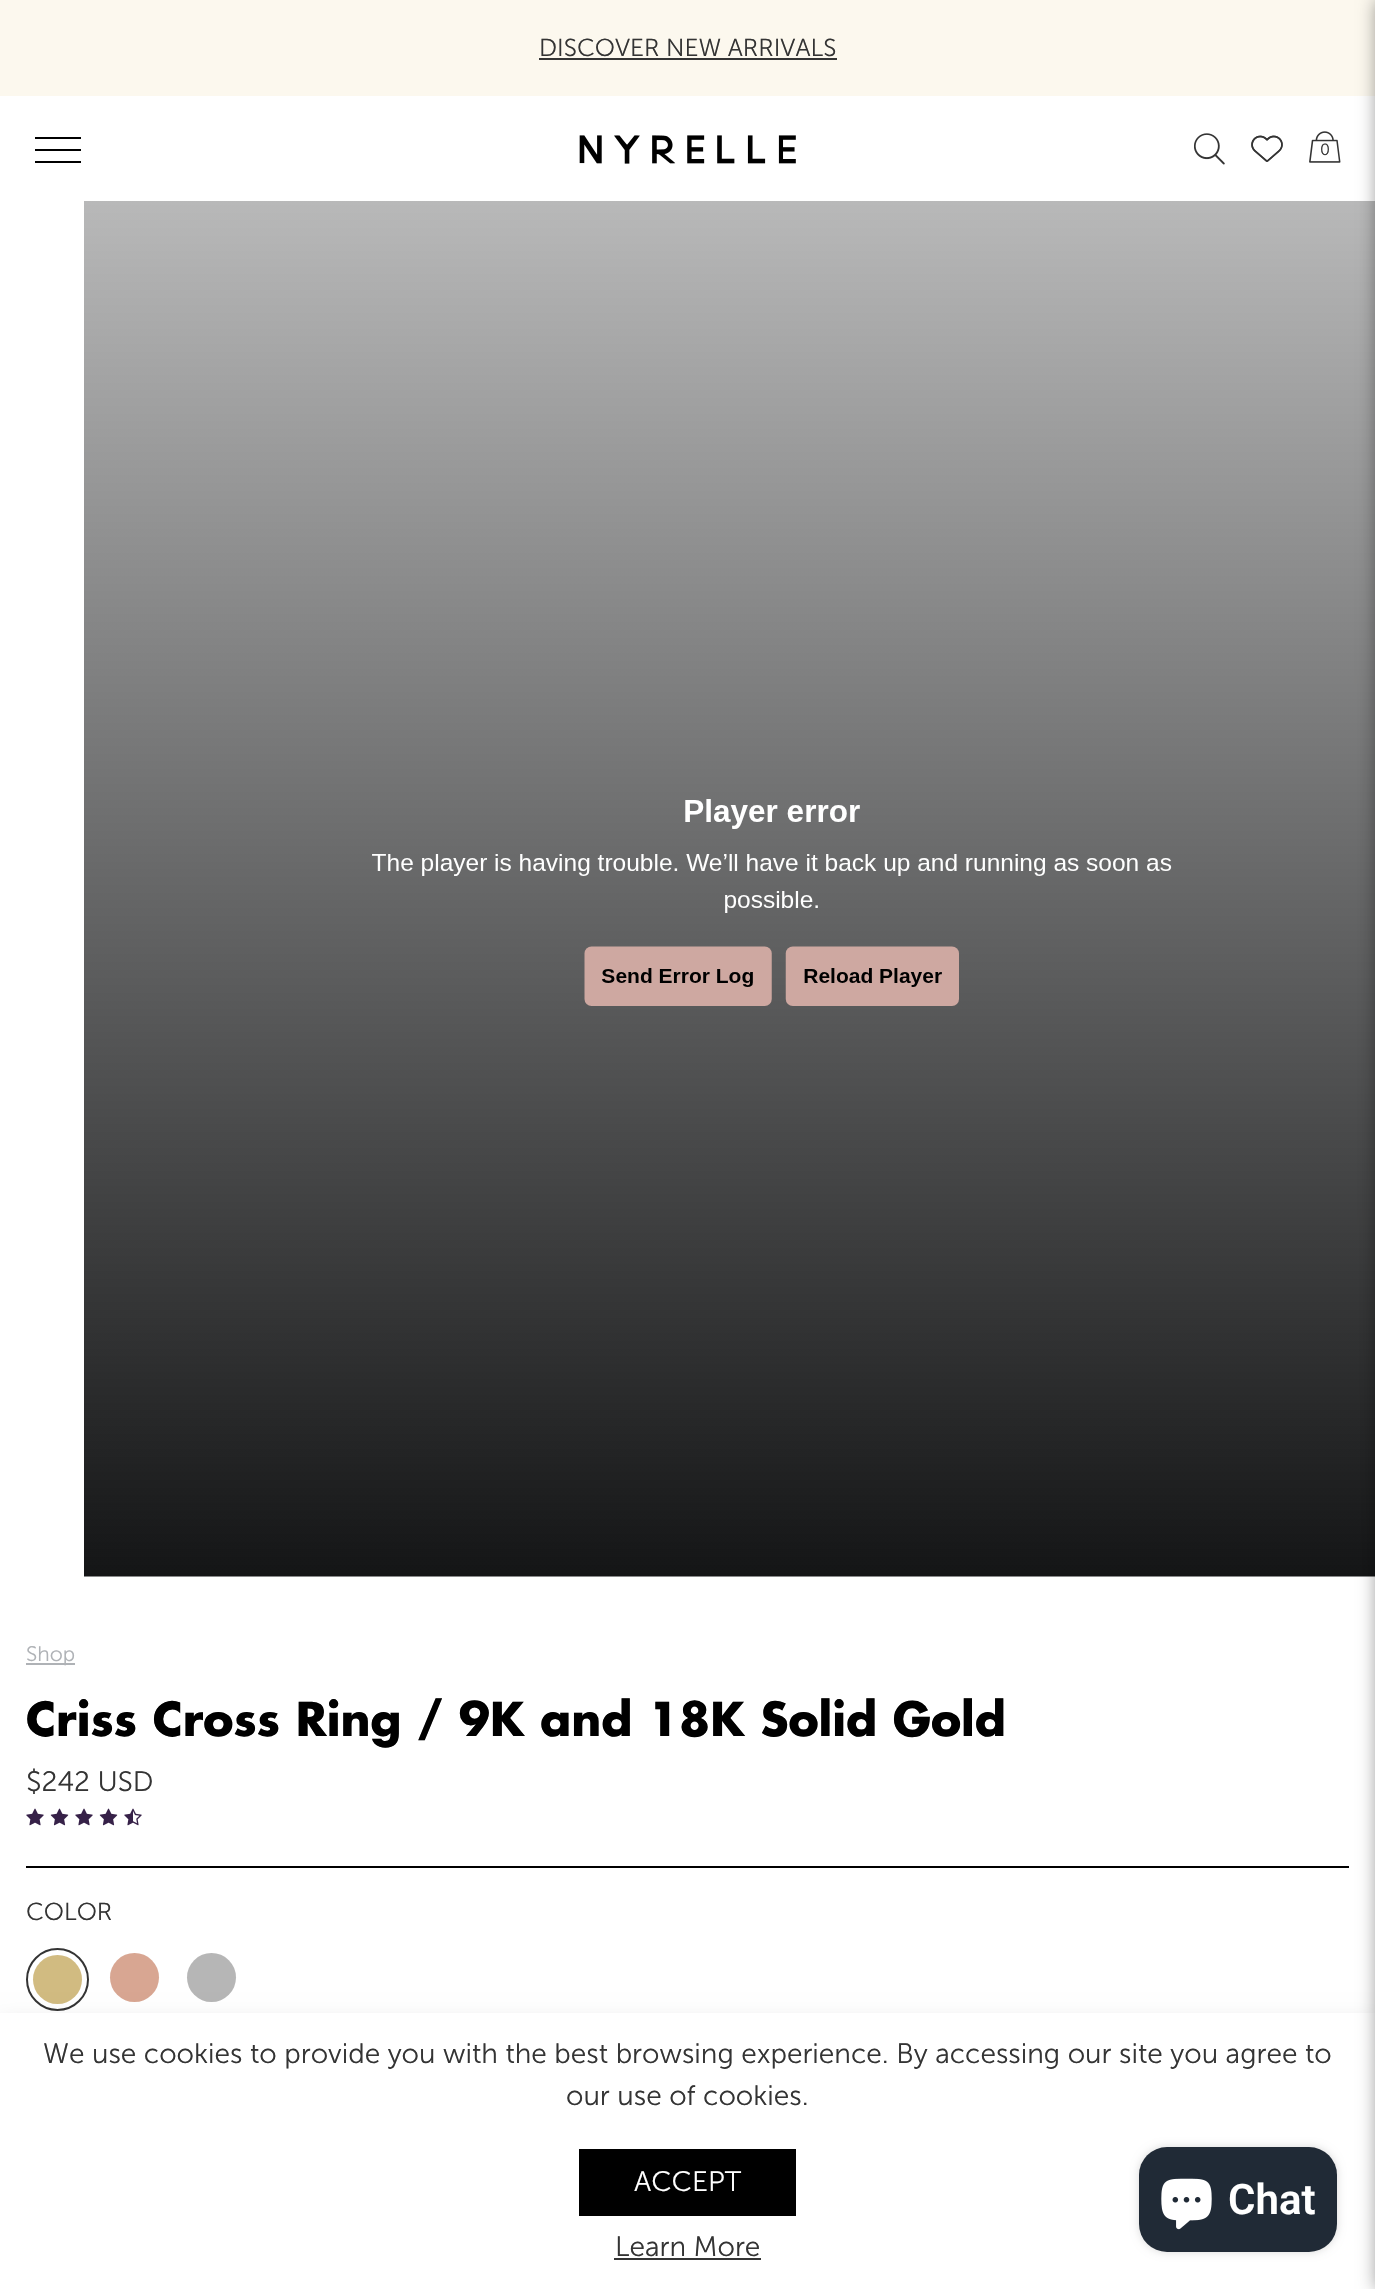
#include "include/core/SkBlurTypes.h"
#include "include/core/SkCanvas.h"
#include "include/core/SkData.h"
#include "include/core/SkFont.h"
#include "include/core/SkFontMgr.h"
#include "include/core/SkImage.h"
#include "include/core/SkMaskFilter.h"
#include "include/core/SkPaint.h"
#include "include/core/SkPathBuilder.h"
#include "include/core/SkTextBlob.h"
#include "include/effects/SkDashPathEffect.h"
#include "include/effects/SkGradientShader.h"
#include "include/utils/SkParsePath.h"

extern sk_sp<SkFontMgr> fontMgr;

void draw(SkCanvas* canvas) {
  SkPaint p;
  p.setAntiAlias(true);
  canvas->clear(SK_ColorWHITE);
  p.setColor(SkColorSetRGB(252, 248, 238));
  canvas->drawRect(SkRect::MakeLTRB(0, 0, 1375, 96), p);
  p.setColor(SkColorSetRGB(52, 52, 52));
  canvas->drawRect(SkRect::MakeLTRB(539, 58, 837, 60), p);
  canvas->drawImageRect(SkImages::DeferredFromEncodedData(SkData::MakeFromFileName("images/5.png")), SkRect::MakeLTRB(84, 201, 1375, 1577), SkSamplingOptions());
  p.setColor(SK_ColorBLACK);
  canvas->drawRect(SkRect::MakeLTRB(26, 1866, 1349, 1868), p);
  p.setStyle(SkPaint::kStroke_Style);
  p.setStrokeWidth(2);
  p.setColor(SkColorSetRGB(52, 52, 52));
  canvas->drawCircle(57.5f, 1979.5f, 30.5f, p);
  p.setStyle(SkPaint::kFill_Style);
  p.setColor(SkColorSetRGB(209, 187, 129));
  canvas->drawCircle(57.5f, 1979.5f, 24.5f, p);
  p.setColor(SkColorSetRGB(216, 166, 146));
  canvas->drawCircle(134.5f, 1977.5f, 24.5f, p);
  p.setColor(SkColorSetRGB(182, 182, 182));
  canvas->drawCircle(211.5f, 1977.5f, 24.5f, p);
  p.setColor(SkColorSetARGB(38, 0, 0, 0));
  p.setMaskFilter(SkMaskFilter::MakeBlur(kNormal_SkBlurStyle, 10.5f));
  canvas->drawRect(SkRect::MakeLTRB(0, 2023, 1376, 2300), p);
  p.setMaskFilter(nullptr);
  p.setColor(SK_ColorWHITE);
  canvas->drawRect(SkRect::MakeLTRB(0, 2013, 1375, 2289), p);
  p.setColor(SkColorSetARGB(102, 0, 0, 0));
  p.setMaskFilter(SkMaskFilter::MakeBlur(kNormal_SkBlurStyle, 9));
  canvas->drawRect(SkRect::MakeLTRB(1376, 0, 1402, 2289), p);
  p.setMaskFilter(nullptr);
  p.setColor(SK_ColorBLACK);
  canvas->drawRect(SkRect::MakeLTRB(35, 149, 81, 151), p);
  canvas->drawRect(SkRect::MakeLTRB(35, 137, 81, 139), p);
  canvas->drawRect(SkRect::MakeLTRB(35, 161, 81, 163), p);
  canvas->drawImageRect(SkImages::DeferredFromEncodedData(SkData::MakeFromFileName("images/1.png")), SkRect::MakeLTRB(579, 135, 796, 164), SkSamplingOptions());
  canvas->drawImageRect(SkImages::DeferredFromEncodedData(SkData::MakeFromFileName("images/2.png")), SkRect::MakeLTRB(1194, 133, 1225, 165), SkSamplingOptions());
  canvas->drawImageRect(SkImages::DeferredFromEncodedData(SkData::MakeFromFileName("images/3.png")), SkRect::MakeLTRB(1251, 135, 1283, 162), SkSamplingOptions());
  canvas->drawImageRect(SkImages::DeferredFromEncodedData(SkData::MakeFromFileName("images/4.png")), SkRect::MakeLTRB(1309, 131, 1341, 163), SkSamplingOptions());
  p.setColor(SkColorSetRGB(175, 178, 182));
  canvas->drawRect(SkRect::MakeLTRB(26, 1663, 75, 1665), p);
  canvas->drawImageRect(SkImages::DeferredFromEncodedData(SkData::MakeFromFileName("images/6.png")), SkRect::MakeLTRB(26, 1808, 44, 1826), SkSamplingOptions());
  canvas->drawImageRect(SkImages::DeferredFromEncodedData(SkData::MakeFromFileName("images/7.png")), SkRect::MakeLTRB(50, 1808, 69, 1826), SkSamplingOptions());
  canvas->drawImageRect(SkImages::DeferredFromEncodedData(SkData::MakeFromFileName("images/6.png")), SkRect::MakeLTRB(75, 1808, 93, 1826), SkSamplingOptions());
  canvas->drawImageRect(SkImages::DeferredFromEncodedData(SkData::MakeFromFileName("images/7.png")), SkRect::MakeLTRB(99, 1808, 118, 1826), SkSamplingOptions());
  canvas->drawImageRect(SkImages::DeferredFromEncodedData(SkData::MakeFromFileName("images/8.png")), SkRect::MakeLTRB(124, 1808, 142, 1826), SkSamplingOptions());
  p.setColor(SK_ColorBLACK);
  canvas->drawRect(SkRect::MakeLTRB(579, 2149, 796, 2216), p);
  p.setColor(SkColorSetRGB(52, 52, 52));
  canvas->drawRect(SkRect::MakeLTRB(614, 2258, 761, 2260), p);
  p.setColor(SkColorSetARGB(38, 0, 0, 0));
  p.setMaskFilter(SkMaskFilter::MakeBlur(kNormal_SkBlurStyle, 4.5f));
  canvas->drawRoundRect(SkRect::MakeLTRB(1139, 2147, 1337, 2252), 28, 28, p);
  p.setMaskFilter(nullptr);
  p.setColor(SkColorSetRGB(32, 42, 54));
  canvas->drawRoundRect(SkRect::MakeLTRB(1139, 2147, 1337, 2252), 28, 28, p);
  canvas->drawImageRect(SkImages::DeferredFromEncodedData(SkData::MakeFromFileName("images/9.png")), SkRect::MakeLTRB(1161, 2178, 1212, 2230), SkSamplingOptions());
  SkFont font1(fontMgr->matchFamilyStyle("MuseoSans", SkFontStyle(300, SkFontStyle::kNormal_Width, SkFontStyle::kUpright_Slant)), 24.5f);
  font1.setSubpixel(true);
  p.setColor(SkColorSetRGB(52, 52, 52));
  canvas->drawString("DISCOVER NEW ARRIVALS", 539, 56, font1, p);
  SkFont font2(fontMgr->matchFamilyStyle("MuseoSans", SkFontStyle(300, SkFontStyle::kNormal_Width, SkFontStyle::kUpright_Slant)), 16);
  font2.setSubpixel(true);
  canvas->drawString("0", 1320, 155, font2, p);
  SkFont font3(fontMgr->matchFamilyStyle("MuseoSans", SkFontStyle(300, SkFontStyle::kNormal_Width, SkFontStyle::kUpright_Slant)), 21);
  font3.setSubpixel(true);
  p.setColor(SkColorSetRGB(175, 178, 182));
  canvas->drawString("Shop", 26, 1661, font3, p);
  SkFont font4(fontMgr->matchFamilyStyle("Futura", SkFontStyle::Bold()), 45.5f);
  font4.setSubpixel(true);
  p.setColor(SK_ColorBLACK);
  canvas->drawString("Criss Cross Ring / 9K and 18K Solid Gold", 26, 1736, font4, p);
  SkFont font5(fontMgr->matchFamilyStyle("MuseoSans", SkFontStyle(300, SkFontStyle::kNormal_Width, SkFontStyle::kUpright_Slant)), 28);
  font5.setSubpixel(true);
  p.setColor(SkColorSetRGB(52, 52, 52));
  canvas->drawString("$242 USD", 26, 1791, font5, p);
  canvas->drawString("COLOR", 26, 1920, font1, p);
  canvas->drawString("We use cookies to provide you with the best browsing experience. By accessing our site you agree to", 43, 2063, font5, p);
  canvas->drawString("our use of cookies.", 566, 2105, font5, p);
  p.setColor(SK_ColorWHITE);
  canvas->drawString("ACCEPT", 634, 2191, font5, p);
  p.setColor(SkColorSetRGB(52, 52, 52));
  canvas->drawString("Learn More", 615, 2256, font5, p);
  SkFont font6(fontMgr->matchFamilyStyle("Roboto", SkFontStyle(600, SkFontStyle::kNormal_Width, SkFontStyle::kUpright_Slant)), 42);
  font6.setSubpixel(true);
  p.setColor(SK_ColorWHITE);
  canvas->drawString("Chat", 1228, 2214, font6, p);
}
